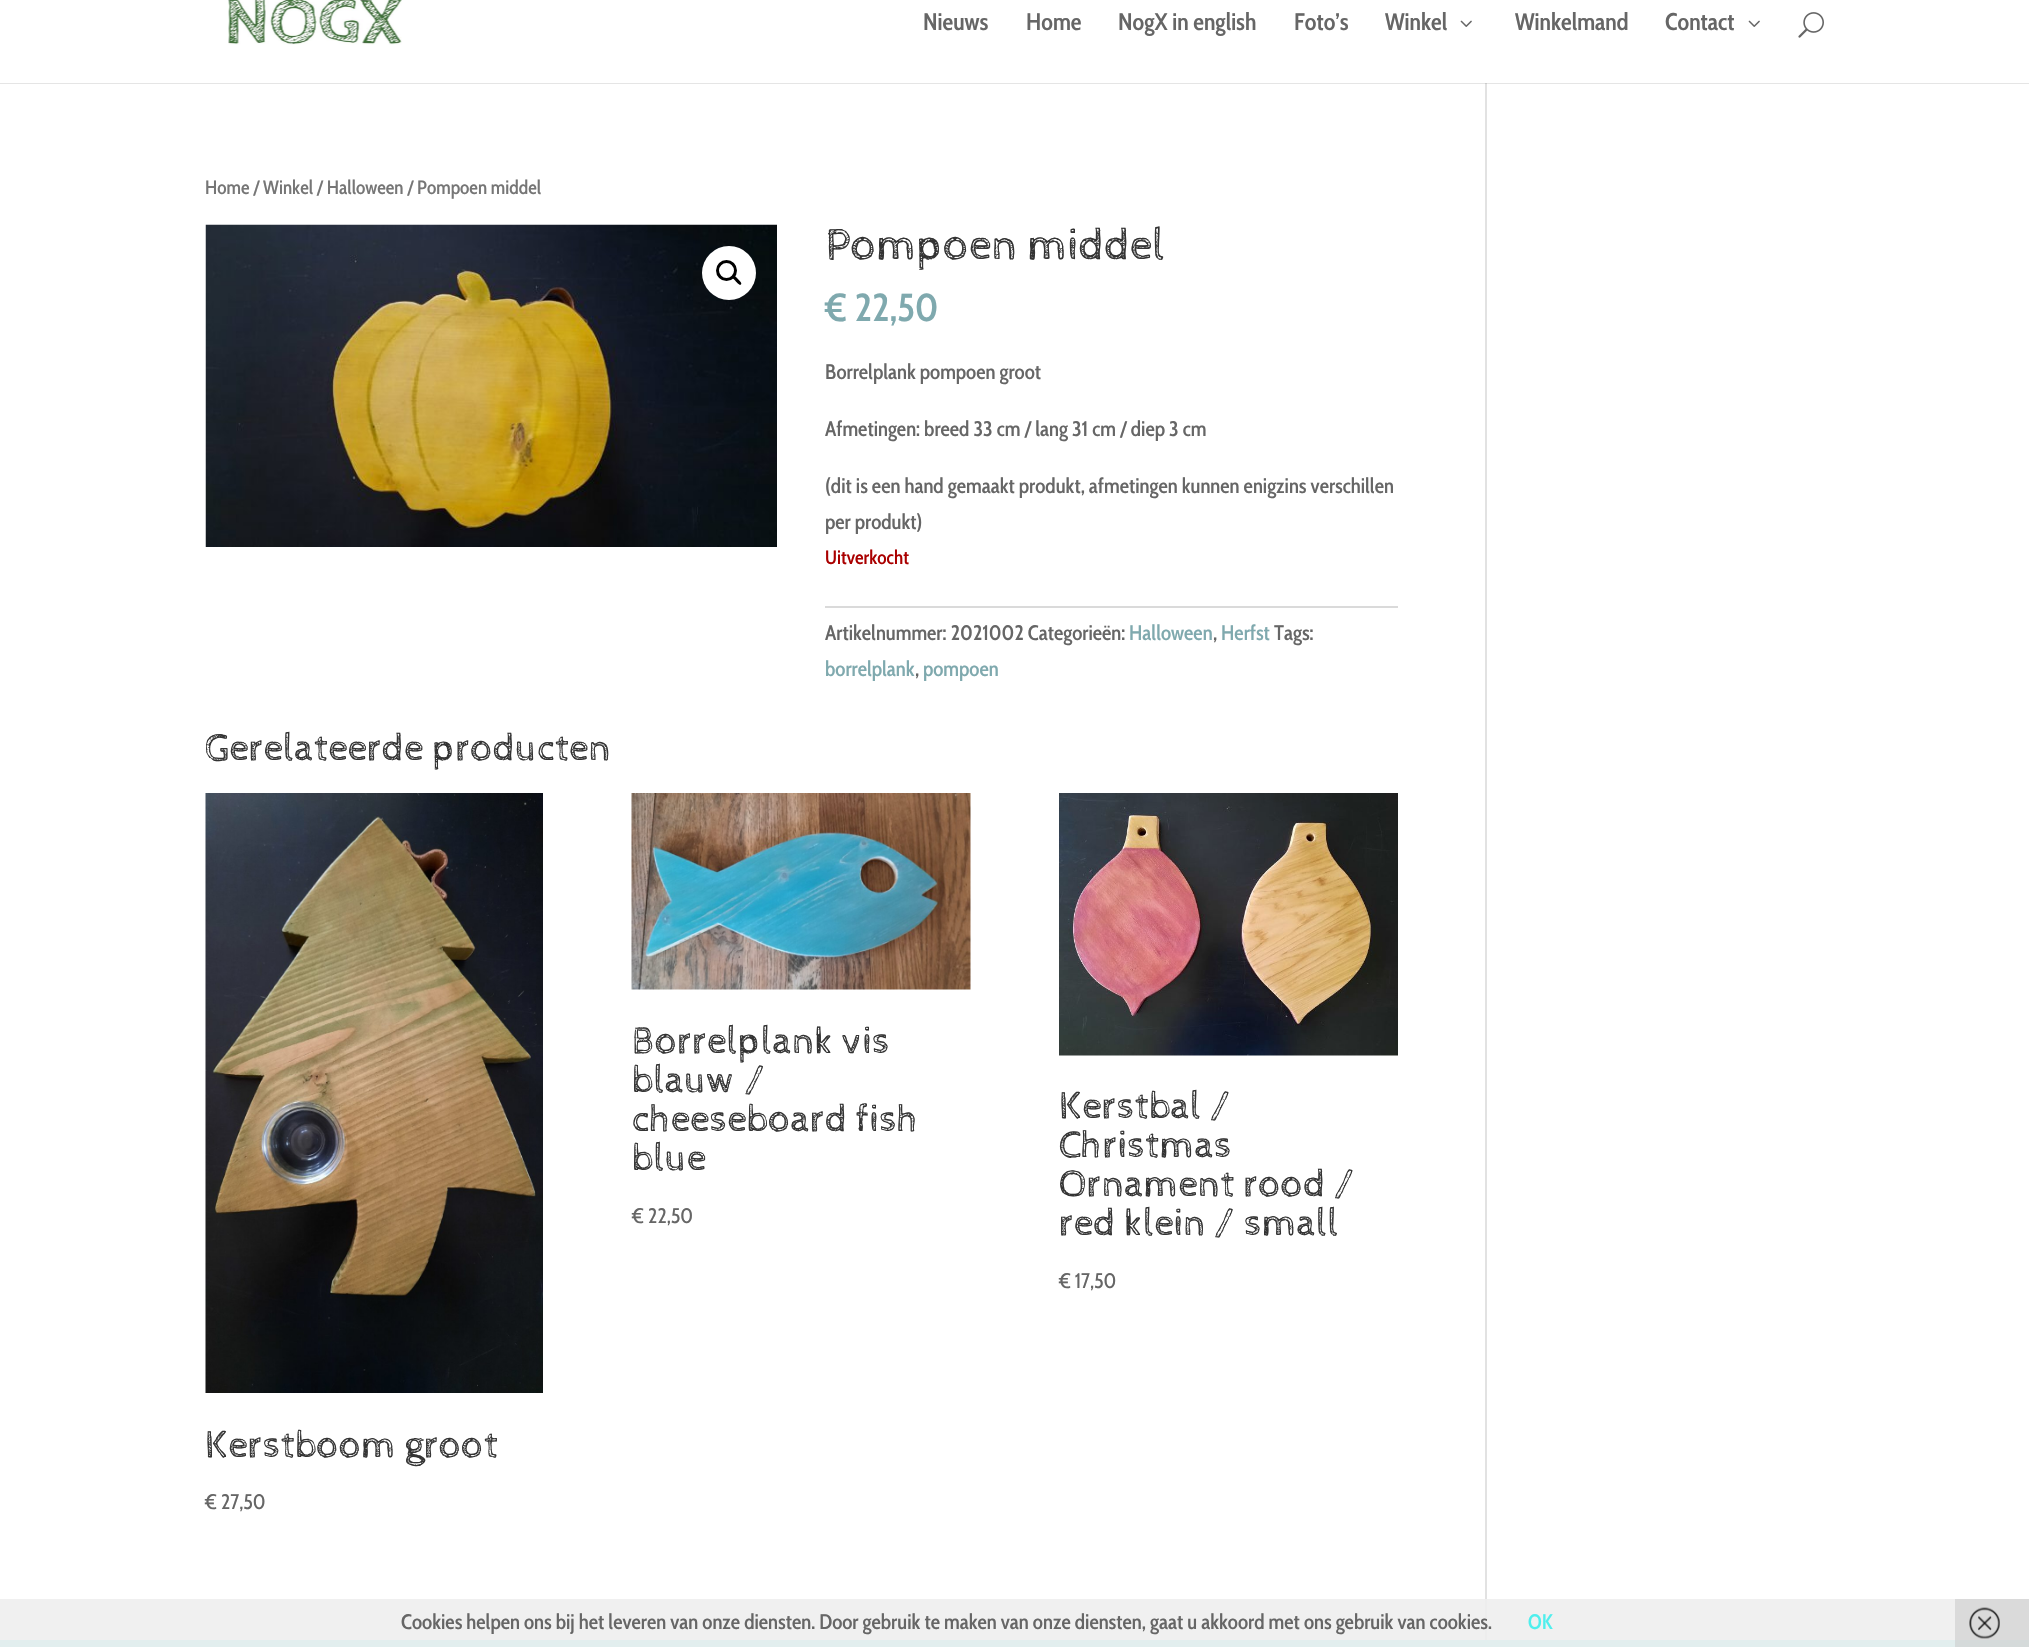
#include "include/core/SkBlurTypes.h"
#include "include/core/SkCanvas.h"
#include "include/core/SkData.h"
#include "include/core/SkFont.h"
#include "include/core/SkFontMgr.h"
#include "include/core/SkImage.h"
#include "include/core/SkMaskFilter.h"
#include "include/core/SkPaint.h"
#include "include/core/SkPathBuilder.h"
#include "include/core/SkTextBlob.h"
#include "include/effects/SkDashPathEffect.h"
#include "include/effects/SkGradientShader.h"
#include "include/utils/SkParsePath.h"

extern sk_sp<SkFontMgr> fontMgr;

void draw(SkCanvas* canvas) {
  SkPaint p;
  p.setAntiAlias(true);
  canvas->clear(SK_ColorWHITE);
  p.setColor(SkColorSetRGB(240, 240, 240));
  canvas->drawRect(SkRect::MakeLTRB(0, 1599, 1955, 1640), p);
  p.setColor(SkColorSetRGB(218, 218, 218));
  canvas->drawRect(SkRect::MakeLTRB(1955, 1599, 2029, 1640), p);
  p.setColor(SkColorSetRGB(226, 226, 226));
  canvas->drawRect(SkRect::MakeLTRB(1485, 83, 1487, 1599), p);
  p.setColor(SkColorSetARGB(26, 0, 0, 0));
  canvas->drawPath(SkPathBuilder().moveTo(0, 82).lineTo(0, 84).lineTo(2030, 84).lineTo(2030, -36).lineTo(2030, 82).close().detach(), p);
  p.setColor(SK_ColorWHITE);
  canvas->drawRect(SkRect::MakeLTRB(0, 82, 2029, 83), p);
  canvas->drawImageRect(SkImages::DeferredFromEncodedData(SkData::MakeFromFileName("images/1.png")), SkRect::MakeLTRB(228, 0, 402, 45), SkSamplingOptions());
  canvas->drawImageRect(SkImages::DeferredFromEncodedData(SkData::MakeFromFileName("images/2.png")), SkRect::MakeLTRB(1460, 20, 1472, 27), SkSamplingOptions());
  canvas->drawImageRect(SkImages::DeferredFromEncodedData(SkData::MakeFromFileName("images/2.png")), SkRect::MakeLTRB(1748, 20, 1760, 27), SkSamplingOptions());
  canvas->drawImageRect(SkImages::DeferredFromEncodedData(SkData::MakeFromFileName("images/3.png")), SkRect::MakeLTRB(1798, 12, 1824, 38), SkSamplingOptions());
  canvas->drawImageRect(SkImages::DeferredFromEncodedData(SkData::MakeFromFileName("images/4.png")), SkRect::MakeLTRB(205, 224, 777, 547), SkSamplingOptions());
  canvas->drawCircle(729, 273, 27, p);
  p.setStyle(SkPaint::kStroke_Style);
  p.setStrokeWidth(3);
  p.setColor(SK_ColorBLACK);
  canvas->drawCircle(726.5f, 270.5f, 9, p);
  p.setStyle(SkPaint::kFill_Style);
  canvas->drawPath(SkPathBuilder().moveTo(732.5f, 276).cubicTo(734, 274, 737, 278, 738, 279).cubicTo(738.5f, 280, 742.5f, 282.5f, 741, 284.5f).cubicTo(739.5f, 286, 736.5f, 282, 735.5f, 281).cubicTo(735, 280, 731, 277.5f, 732.5f, 276).close().detach(), p);
  p.setColor(SkColorSetRGB(218, 218, 218));
  canvas->drawRect(SkRect::MakeLTRB(825, 606, 1398, 608), p);
  canvas->drawImageRect(SkImages::DeferredFromEncodedData(SkData::MakeFromFileName("images/5.png")), SkRect::MakeLTRB(631, 793, 971, 990), SkSamplingOptions());
  canvas->drawImageRect(SkImages::DeferredFromEncodedData(SkData::MakeFromFileName("images/6.png")), SkRect::MakeLTRB(1059, 793, 1398, 1056), SkSamplingOptions());
  canvas->drawImageRect(SkImages::DeferredFromEncodedData(SkData::MakeFromFileName("images/7.png")), SkRect::MakeLTRB(205, 793, 543, 1393), SkSamplingOptions());
  p.setColor(SkColorSetRGB(237, 237, 237));
  canvas->drawRect(SkRect::MakeLTRB(1485, 1599, 1487, 1640), p);
  p.setColor(SkColorSetRGB(226, 238, 238));
  canvas->drawRect(SkRect::MakeLTRB(0, 1640, 1955, 1647), p);
  p.setColor(SkColorSetRGB(213, 218, 218));
  canvas->drawRect(SkRect::MakeLTRB(1955, 1640, 2029, 1647), p);
  canvas->drawImageRect(SkImages::DeferredFromEncodedData(SkData::MakeFromFileName("images/8.png")), SkRect::MakeLTRB(1969, 1607, 2000, 1639), SkSamplingOptions());
  SkFont font1(fontMgr->matchFamilyStyle("Cabin Condensed", SkFontStyle(600, SkFontStyle::kNormal_Width, SkFontStyle::kUpright_Slant)), 24);
  font1.setSubpixel(true);
  p.setColor(SkColorSetRGB(102, 102, 102));
  canvas->drawString("Nieuws", 923, 30, font1, p);
  canvas->drawString("Home", 1026, 30, font1, p);
  canvas->drawString("NogX in english", 1118, 30, font1, p);
  canvas->drawString("Foto’s", 1294, 30, font1, p);
  canvas->drawString("Winkel", 1385, 30, font1, p);
  canvas->drawString("Winkelmand", 1515, 30, font1, p);
  canvas->drawString("Contact", 1665, 30, font1, p);
  SkFont font2(fontMgr->matchFamilyStyle("Cabin Condensed", SkFontStyle(500, SkFontStyle::kNormal_Width, SkFontStyle::kUpright_Slant)), 19.3f);
  font2.setSubpixel(true);
  p.setColor(SkColorSetRGB(118, 118, 118));
  canvas->drawString("Home / Winkel / Halloween / Pompoen middel", 205, 194, font2, p);
  SkFont font3(fontMgr->matchFamilyStyle("Cabin Sketch", SkFontStyle::Normal()), 45);
  font3.setSubpixel(true);
  p.setColor(SkColorSetRGB(51, 51, 51));
  canvas->drawString("Pompoen middel", 825, 259, font3, p);
  SkFont font4(fontMgr->matchFamilyStyle("Cabin Condensed", SkFontStyle(500, SkFontStyle::kNormal_Width, SkFontStyle::kUpright_Slant)), 39);
  font4.setSubpixel(true);
  p.setColor(SkColorSetRGB(127, 169, 174));
  canvas->drawString("€ 22,50", 825, 321, font4, p);
  SkFont font5(fontMgr->matchFamilyStyle("Cabin Condensed", SkFontStyle(500, SkFontStyle::kNormal_Width, SkFontStyle::kUpright_Slant)), 21);
  font5.setSubpixel(true);
  p.setColor(SkColorSetRGB(102, 102, 102));
  canvas->drawString("Borrelplank pompoen groot", 825, 379, font5, p);
  canvas->drawString("Afmetingen: breed 33 cm / lang 31 cm / diep 3 cm", 825, 436, font5, p);
  canvas->drawString("(dit is een hand gemaakt produkt, afmetingen kunnen enigzins verschillen", 825, 493, font5, p);
  canvas->drawString("per produkt)", 825, 529, font5, p);
  p.setColor(SkColorSetRGB(170, 0, 0));
  canvas->drawString("Uitverkocht", 825, 564, font2, p);
  p.setColor(SkColorSetRGB(102, 102, 102));
  canvas->drawString("Artikelnummer: 2021002 Categorieën:", 825, 640, font5, p);
  p.setColor(SkColorSetRGB(127, 169, 174));
  canvas->drawString("Halloween", 1129, 640, font5, p);
  p.setColor(SkColorSetRGB(102, 102, 102));
  canvas->drawString(",", 1213, 640, font5, p);
  p.setColor(SkColorSetRGB(127, 169, 174));
  canvas->drawString("Herfst", 1221, 640, font5, p);
  p.setColor(SkColorSetRGB(102, 102, 102));
  canvas->drawString("Tags:", 1274, 640, font5, p);
  p.setColor(SkColorSetRGB(127, 169, 174));
  canvas->drawString("borrelplank", 825, 676, font5, p);
  p.setColor(SkColorSetRGB(102, 102, 102));
  canvas->drawString(",", 915, 676, font5, p);
  p.setColor(SkColorSetRGB(127, 169, 174));
  canvas->drawString("pompoen", 923, 676, font5, p);
  SkFont font6(fontMgr->matchFamilyStyle("Cabin Sketch", SkFontStyle::Normal()), 39);
  font6.setSubpixel(true);
  p.setColor(SkColorSetRGB(51, 51, 51));
  canvas->drawString("Gerelateerde producten", 205, 760, font6, p);
  canvas->drawString("Borrelplank vis", 632, 1053, font6, p);
  canvas->drawString("blauw /", 632, 1092, font6, p);
  canvas->drawString("cheeseboard fish", 632, 1131, font6, p);
  canvas->drawString("blue", 632, 1170, font6, p);
  SkFont font7(fontMgr->matchFamilyStyle("Cabin Condensed", SkFontStyle::Normal()), 21);
  font7.setSubpixel(true);
  p.setColor(SkColorSetRGB(102, 102, 102));
  canvas->drawString("€ 22,50", 632, 1223, font7, p);
  p.setColor(SkColorSetRGB(51, 51, 51));
  canvas->drawString("Kerstbal /", 1059, 1118, font6, p);
  canvas->drawString("Christmas", 1059, 1157, font6, p);
  canvas->drawString("Ornament rood /", 1059, 1196, font6, p);
  canvas->drawString("red klein / small", 1059, 1235, font6, p);
  p.setColor(SkColorSetRGB(102, 102, 102));
  canvas->drawString("€ 17,50", 1059, 1288, font7, p);
  p.setColor(SkColorSetRGB(51, 51, 51));
  canvas->drawString("Kerstboom groot", 205, 1457, font6, p);
  p.setColor(SkColorSetRGB(102, 102, 102));
  canvas->drawString("€ 27,50", 205, 1509, font7, p);
  canvas->drawString("Cookies helpen ons bij het leveren van onze diensten. Door gebruik te maken van onze diensten, gaat u akkoord met ons gebruik van cookies.", 401, 1629, font5, p);
  p.setColor(SkColorSetRGB(79, 239, 237));
  canvas->drawString("OK", 1528, 1629, font5, p);
}
